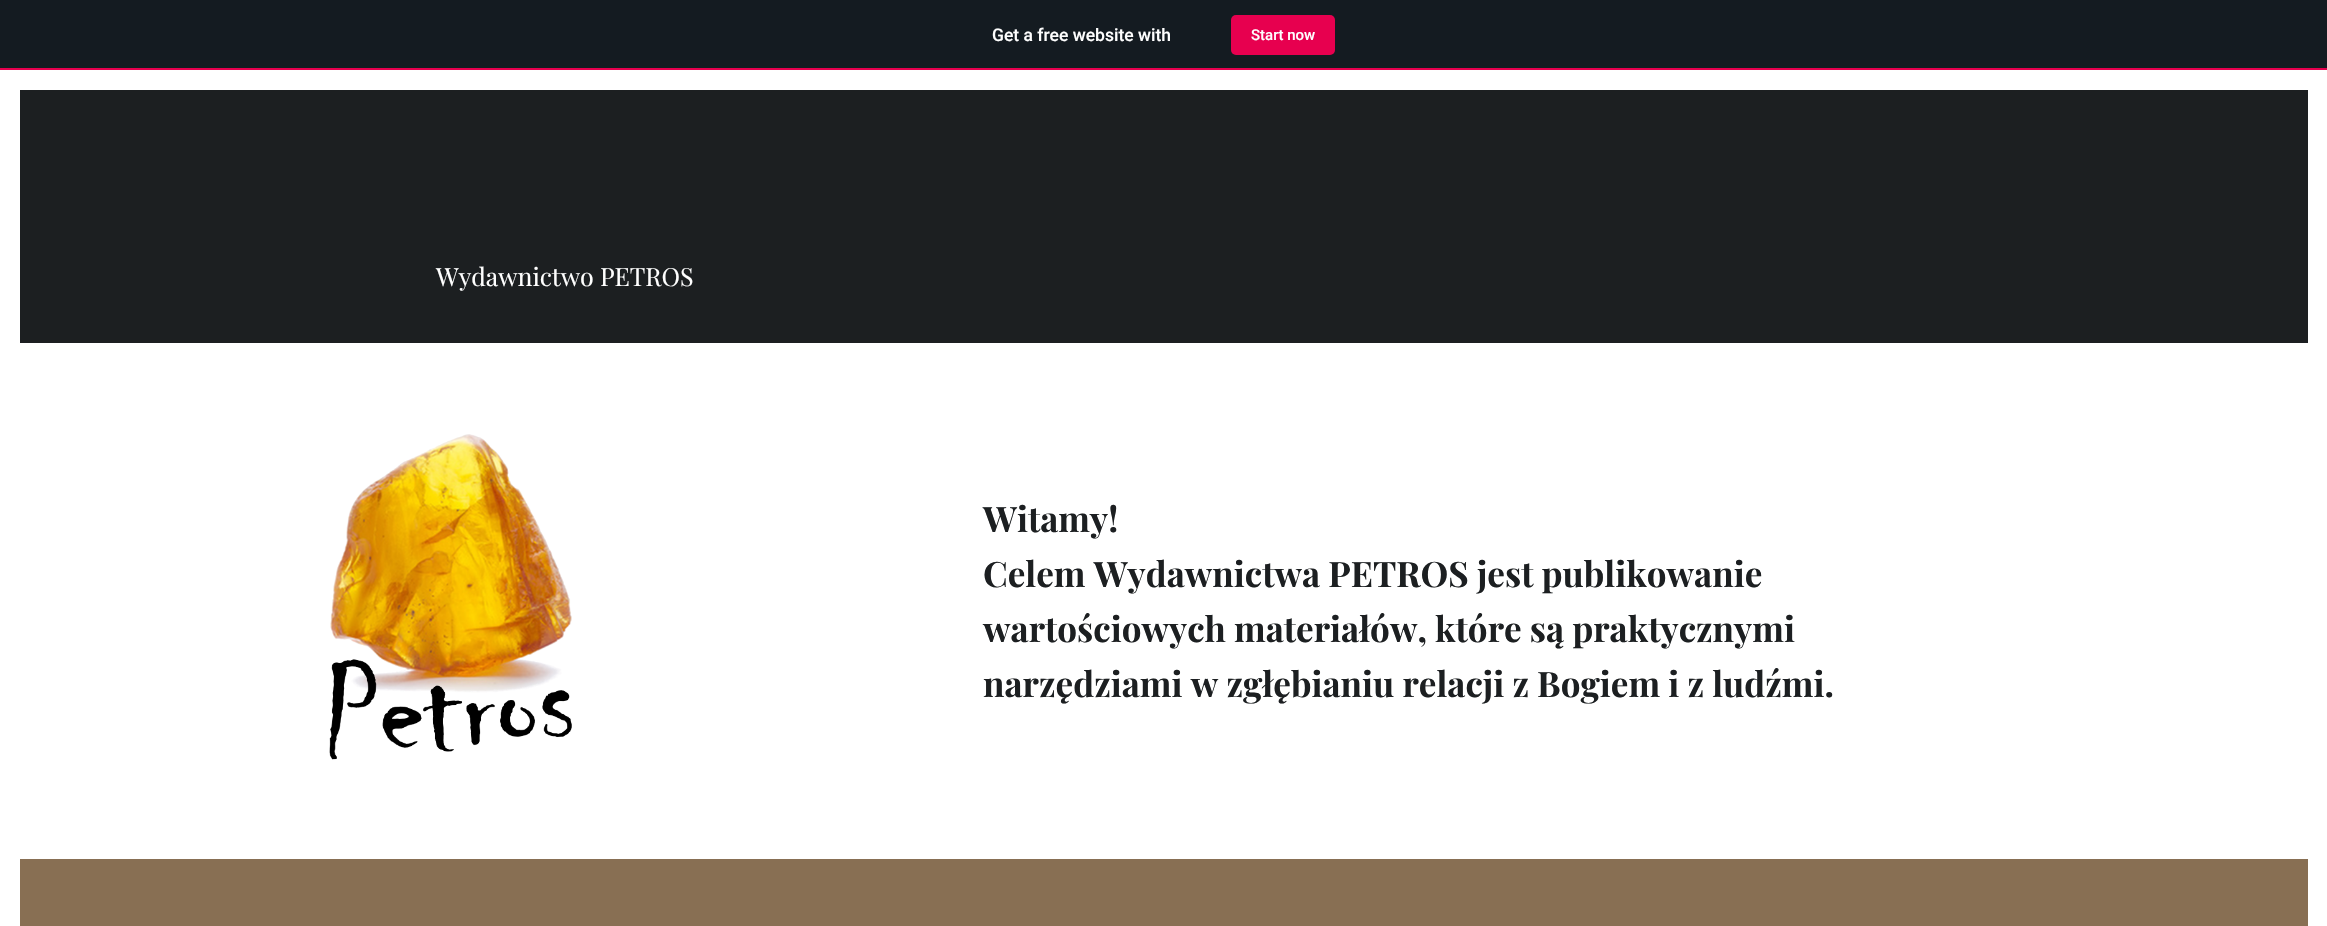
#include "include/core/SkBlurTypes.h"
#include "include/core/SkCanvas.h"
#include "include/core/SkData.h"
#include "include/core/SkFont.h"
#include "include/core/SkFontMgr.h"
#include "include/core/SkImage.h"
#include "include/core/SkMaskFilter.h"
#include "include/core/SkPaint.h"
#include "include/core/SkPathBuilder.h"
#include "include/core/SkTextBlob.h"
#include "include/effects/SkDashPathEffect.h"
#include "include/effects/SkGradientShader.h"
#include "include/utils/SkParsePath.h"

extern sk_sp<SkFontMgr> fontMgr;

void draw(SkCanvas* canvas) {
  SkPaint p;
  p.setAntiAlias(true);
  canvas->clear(SK_ColorWHITE);
  p.setColor(SkColorSetRGB(20, 27, 33));
  canvas->drawRect(SkRect::MakeLTRB(0, 0, 2327, 68), p);
  p.setColor(SkColorSetRGB(231, 0, 79));
  canvas->drawRect(SkRect::MakeLTRB(0, 68, 2327, 70), p);
  canvas->drawRoundRect(SkRect::MakeLTRB(1231, 15, 1335, 55), 5, 5, p);
  p.setColor(SkColorSetRGB(28, 31, 33));
  canvas->drawRect(SkRect::MakeLTRB(20, 90, 2308, 343), p);
  canvas->drawImageRect(SkImages::DeferredFromEncodedData(SkData::MakeFromFileName("images/1.png")), SkRect::MakeLTRB(329, 434, 572, 760), SkSamplingOptions());
  p.setColor(SkColorSetRGB(136, 111, 83));
  canvas->drawRect(SkRect::MakeLTRB(20, 859, 2308, 926), p);
  SkFont font1(fontMgr->matchFamilyStyle("Roboto", SkFontStyle(500, SkFontStyle::kNormal_Width, SkFontStyle::kUpright_Slant)), 17.5f);
  font1.setSubpixel(true);
  p.setColor(SK_ColorWHITE);
  canvas->drawString("Get a free website with", 992, 41, font1, p);
  SkFont font2(fontMgr->matchFamilyStyle("Roboto", SkFontStyle(500, SkFontStyle::kNormal_Width, SkFontStyle::kUpright_Slant)), 15);
  font2.setSubpixel(true);
  canvas->drawString("Start now", 1251, 40, font2, p);
  SkFont font3(fontMgr->matchFamilyStyle("Playfair Display", SkFontStyle::Normal()), 25);
  font3.setSubpixel(true);
  canvas->drawString("Wydawnictwo PETROS", 436, 286, font3, p);
  SkFont font4(fontMgr->matchFamilyStyle("Playfair Display", SkFontStyle::Bold()), 35);
  font4.setSubpixel(true);
  p.setColor(SkColorSetRGB(28, 31, 33));
  canvas->drawString("Witamy!", 983, 532, font4, p);
  canvas->drawString("Celem Wydawnictwa PETROS jest publikowanie", 983, 587, font4, p);
  canvas->drawString("wartościowych materiałów, które są praktycznymi", 983, 642, font4, p);
  canvas->drawString("narzędziami w zgłębianiu relacji z Bogiem i z ludźmi.", 983, 697, font4, p);
}
